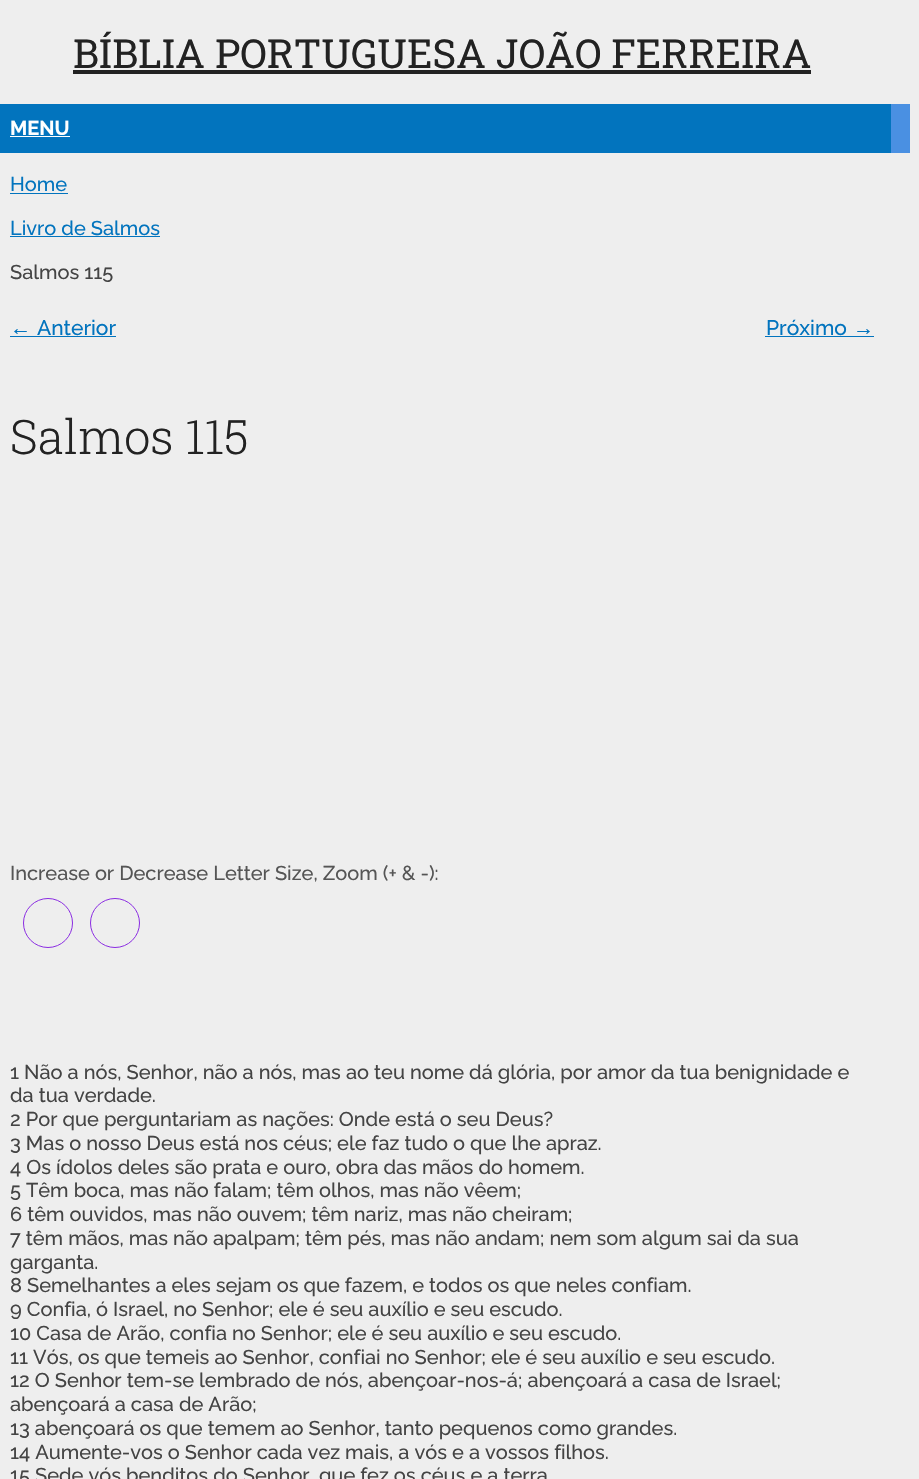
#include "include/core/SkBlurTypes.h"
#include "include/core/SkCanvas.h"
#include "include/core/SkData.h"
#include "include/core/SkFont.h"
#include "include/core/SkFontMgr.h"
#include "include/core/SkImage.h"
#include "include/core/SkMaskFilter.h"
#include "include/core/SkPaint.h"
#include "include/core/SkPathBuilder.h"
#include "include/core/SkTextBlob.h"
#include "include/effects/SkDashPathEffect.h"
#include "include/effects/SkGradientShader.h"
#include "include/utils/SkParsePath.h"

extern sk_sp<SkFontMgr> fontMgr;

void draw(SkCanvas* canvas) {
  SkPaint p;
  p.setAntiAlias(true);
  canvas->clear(SkColorSetRGB(238, 238, 238));
  p.setColor(SkColorSetRGB(34, 34, 34));
  canvas->drawRect(SkRect::MakeLTRB(73, 70, 811, 74), p);
  p.setColor(SkColorSetRGB(74, 144, 226));
  canvas->drawRect(SkRect::MakeLTRB(891, 104, 910, 153), p);
  p.setColor(SkColorSetRGB(2, 116, 190));
  canvas->drawRect(SkRect::MakeLTRB(0, 104, 891, 153), p);
  p.setColor(SK_ColorWHITE);
  canvas->drawRect(SkRect::MakeLTRB(10, 136, 70, 137), p);
  p.setColor(SkColorSetRGB(2, 116, 190));
  canvas->drawRect(SkRect::MakeLTRB(10, 193, 68, 194), p);
  canvas->drawRect(SkRect::MakeLTRB(10, 236, 160, 237), p);
  canvas->drawRect(SkRect::MakeLTRB(10, 336, 116, 337), p);
  canvas->drawRect(SkRect::MakeLTRB(765, 336, 874, 337), p);
  p.setStyle(SkPaint::kStroke_Style);
  p.setStrokeWidth(1);
  p.setColor(SkColorSetRGB(138, 43, 226));
  canvas->drawCircle(48, 923, 24.5f, p);
  canvas->drawCircle(115, 923, 24.5f, p);
  SkFont font1(fontMgr->matchFamilyStyle("Roboto Slab", SkFontStyle::Normal()), 40);
  font1.setSubpixel(true);
  p.setStyle(SkPaint::kFill_Style);
  p.setColor(SkColorSetRGB(34, 34, 34));
  canvas->drawString("BÍBLIA PORTUGUESA JOÃO FERREIRA", 73, 68, font1, p);
  SkFont font2(fontMgr->matchFamilyStyle("Raleway", SkFontStyle::Bold()), 20);
  font2.setSubpixel(true);
  p.setColor(SK_ColorWHITE);
  canvas->drawString("MENU", 10, 135, font2, p);
  SkFont font3(fontMgr->matchFamilyStyle("Raleway", SkFontStyle(500, SkFontStyle::kNormal_Width, SkFontStyle::kUpright_Slant)), 20);
  font3.setSubpixel(true);
  p.setColor(SkColorSetRGB(2, 116, 190));
  canvas->drawString("Home", 10, 191, font3, p);
  canvas->drawString("Livro de Salmos", 10, 235, font3, p);
  p.setColor(SkColorSetRGB(68, 68, 68));
  canvas->drawString("Salmos 115", 10, 279, font3, p);
  SkFont font4(fontMgr->matchFamilyStyle("Liberation Serif", SkFontStyle::Normal()), 21);
  font4.setSubpixel(true);
  p.setColor(SkColorSetRGB(2, 116, 190));
  canvas->drawString("←", 10, 335, font4, p);
  SkFont font5(fontMgr->matchFamilyStyle("Raleway", SkFontStyle(500, SkFontStyle::kNormal_Width, SkFontStyle::kUpright_Slant)), 21);
  font5.setSubpixel(true);
  canvas->drawString("Anterior", 37, 335, font5, p);
  canvas->drawString("Próximo", 766, 335, font5, p);
  canvas->drawString("→", 853, 335, font4, p);
  SkFont font6(fontMgr->matchFamilyStyle("Roboto Slab", SkFontStyle(300, SkFontStyle::kNormal_Width, SkFontStyle::kUpright_Slant)), 47.5f);
  font6.setSubpixel(true);
  p.setColor(SkColorSetRGB(34, 34, 34));
  canvas->drawString("Salmos 115", 10, 454, font6, p);
  p.setColor(SkColorSetRGB(85, 85, 85));
  canvas->drawString("Increase or Decrease Letter Size, Zoom (+ & -):", 10, 880, font3, p);
  p.setColor(SkColorSetRGB(68, 68, 68));
  canvas->drawString("1 Não a nós, Senhor, não a nós, mas ao teu nome dá glória, por amor da tua benignidade e", 10, 1079, font3, p);
  canvas->drawString("da tua verdade.", 10, 1102, font3, p);
  canvas->drawString("2 Por que perguntariam as nações: Onde está o seu Deus?", 10, 1126, font3, p);
  canvas->drawString("3 Mas o nosso Deus está nos céus; ele faz tudo o que lhe apraz.", 10, 1150, font3, p);
  canvas->drawString("4 Os ídolos deles são prata e ouro, obra das mãos do homem.", 10, 1174, font3, p);
  canvas->drawString("5 Têm boca, mas não falam; têm olhos, mas não vêem;", 10, 1197, font3, p);
  canvas->drawString("6 têm ouvidos, mas não ouvem; têm nariz, mas não cheiram;", 10, 1221, font3, p);
  canvas->drawString("7 têm mãos, mas não apalpam; têm pés, mas não andam; nem som algum sai da sua", 10, 1245, font3, p);
  canvas->drawString("garganta.", 10, 1269, font3, p);
  canvas->drawString("8 Semelhantes a eles sejam os que fazem, e todos os que neles confiam.", 10, 1292, font3, p);
  canvas->drawString("9 Confia, ó Israel, no Senhor; ele é seu auxílio e seu escudo.", 10, 1316, font3, p);
  canvas->drawString("10 Casa de Arão, confia no Senhor; ele é seu auxílio e seu escudo.", 10, 1340, font3, p);
  canvas->drawString("11 Vós, os que temeis ao Senhor, confiai no Senhor; ele é seu auxílio e seu escudo.", 10, 1364, font3, p);
  canvas->drawString("12 O Senhor tem-se lembrado de nós, abençoar-nos-á; abençoará a casa de Israel;", 10, 1387, font3, p);
  canvas->drawString("abençoará a casa de Arão;", 10, 1411, font3, p);
  canvas->drawString("13 abençoará os que temem ao Senhor, tanto pequenos como grandes.", 10, 1435, font3, p);
  canvas->drawString("14 Aumente-vos o Senhor cada vez mais, a vós e a vossos filhos.", 10, 1459, font3, p);
  canvas->drawString("15 Sede vós benditos do Senhor, que fez os céus e a terra", 10, 1482, font3, p);
}
